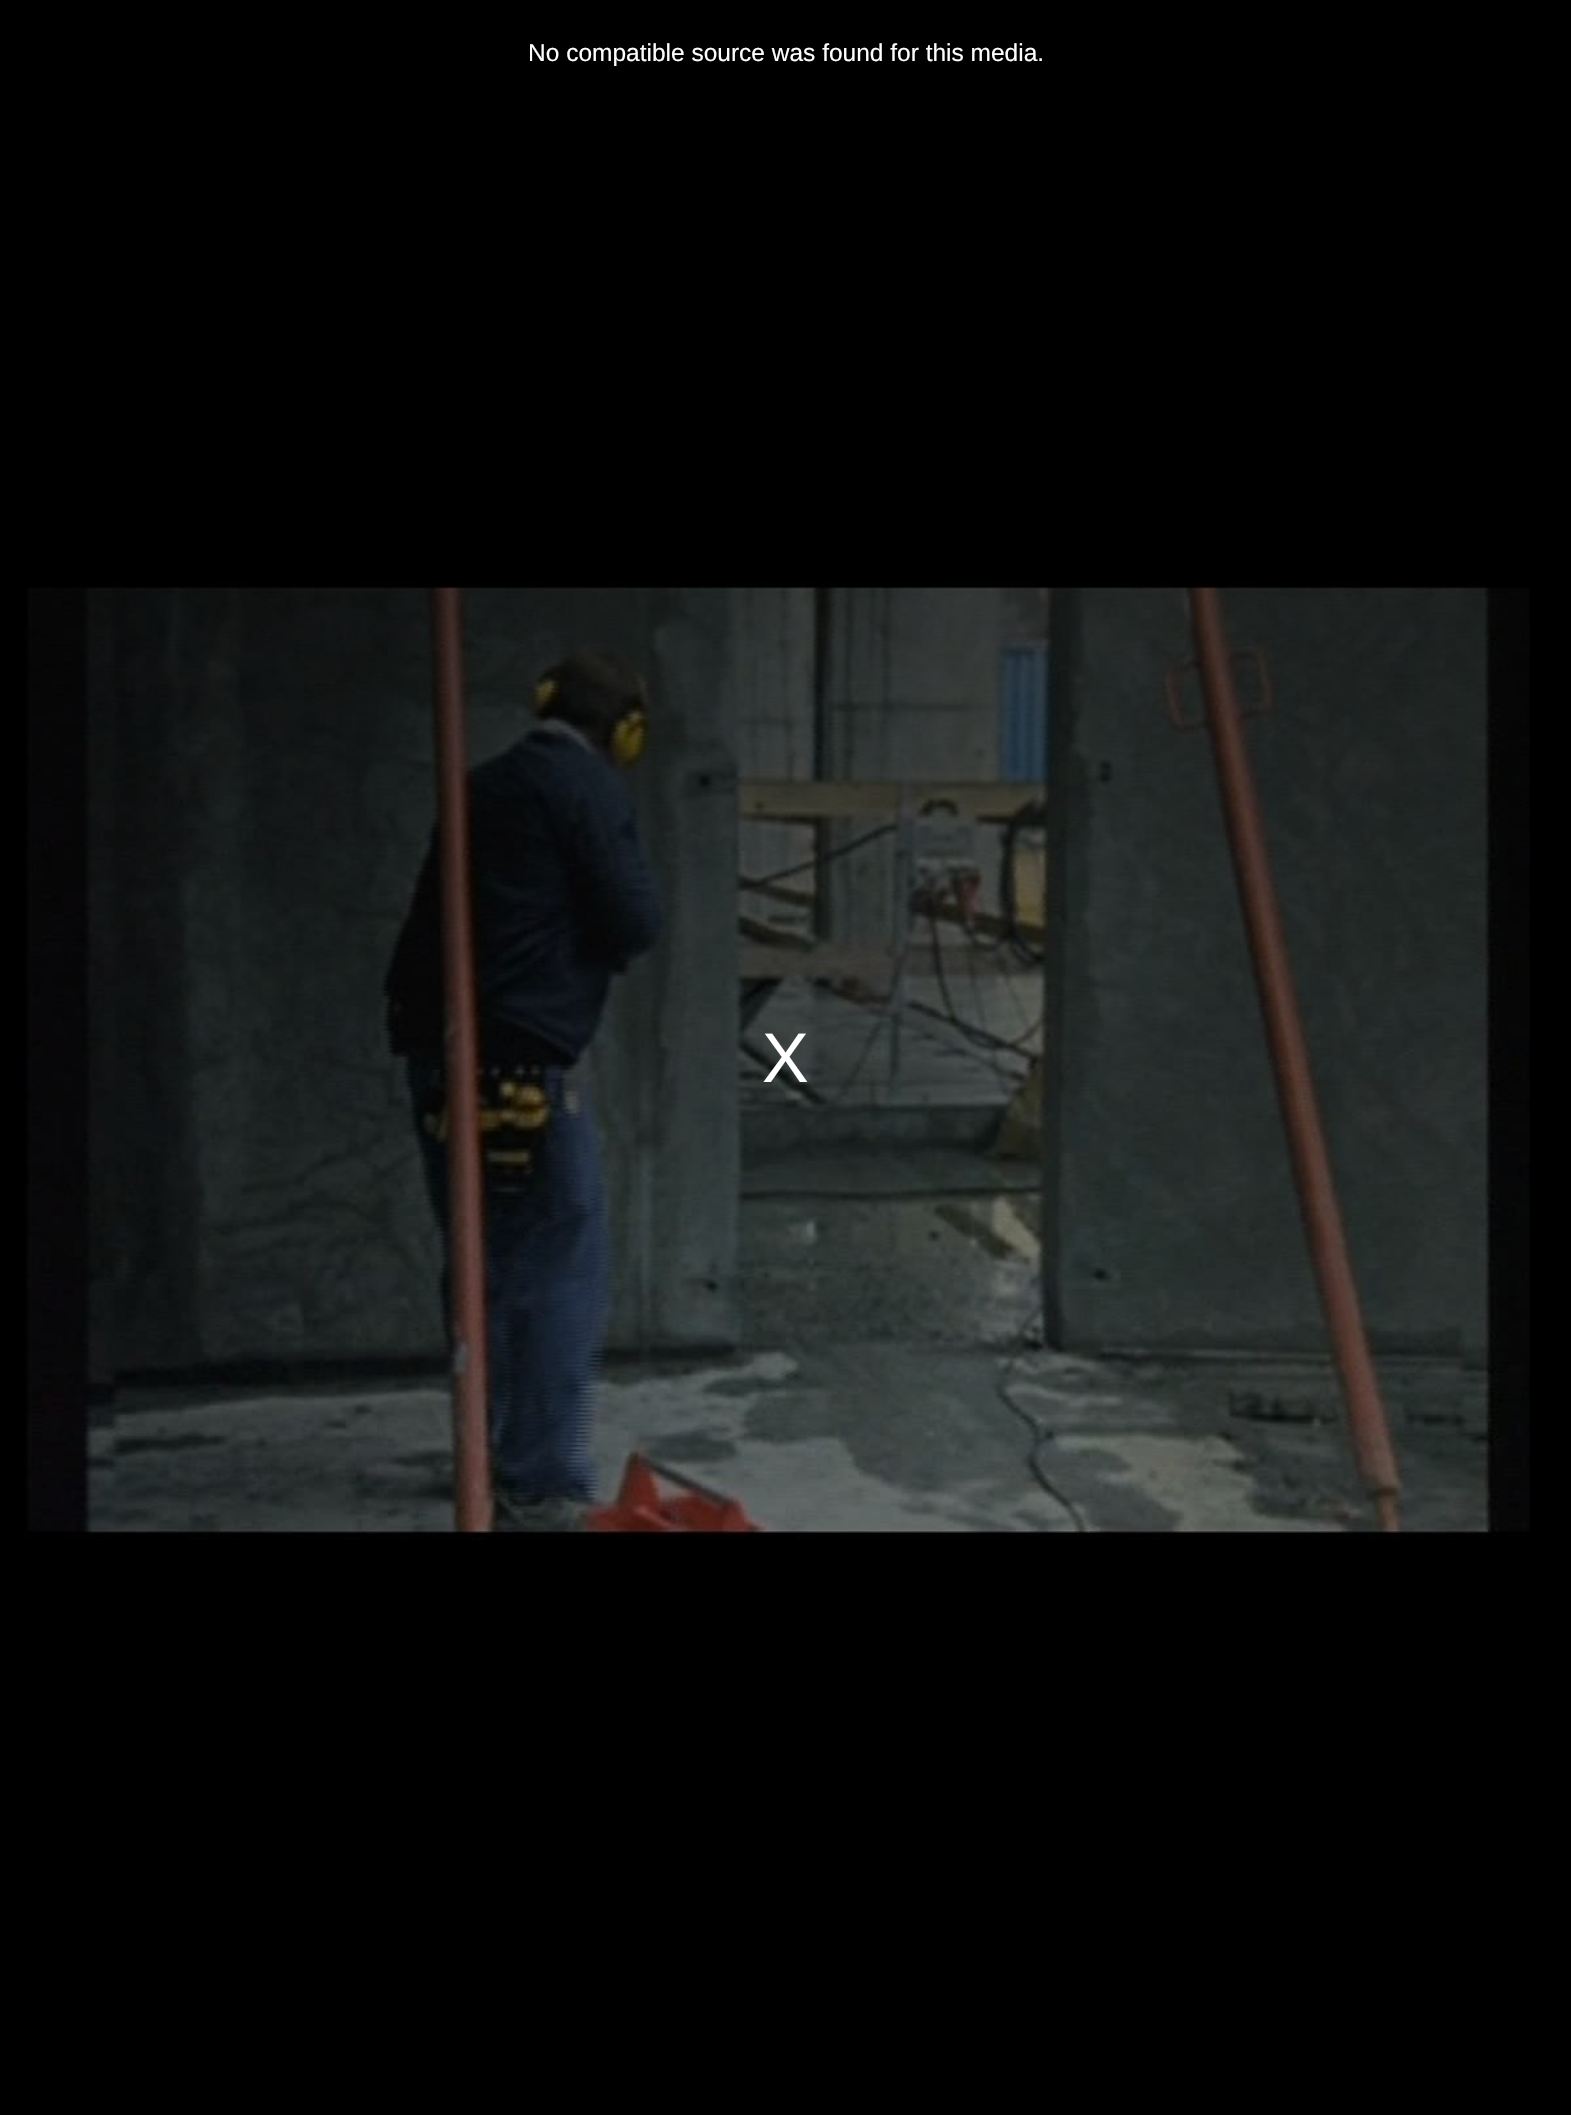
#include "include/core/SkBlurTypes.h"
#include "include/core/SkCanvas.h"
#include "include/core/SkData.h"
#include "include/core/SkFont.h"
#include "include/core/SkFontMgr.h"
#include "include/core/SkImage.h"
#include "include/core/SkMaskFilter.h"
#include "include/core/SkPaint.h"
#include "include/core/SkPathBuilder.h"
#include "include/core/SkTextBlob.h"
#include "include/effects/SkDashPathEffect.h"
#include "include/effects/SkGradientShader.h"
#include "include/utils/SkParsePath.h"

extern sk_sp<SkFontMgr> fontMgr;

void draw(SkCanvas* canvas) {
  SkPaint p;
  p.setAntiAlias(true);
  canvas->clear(SK_ColorBLACK);
  canvas->drawImageRect(SkImages::DeferredFromEncodedData(SkData::MakeFromFileName("images/1.png")), SkRect::MakeLTRB(25, 582, 1530, 1540), SkSamplingOptions());
  {
    const SkColor colors[] = {SkColorSetARGB(204, 0, 0, 0), SkColorSetARGB(0, 0, 0, 0)};
    const float stops[] = {0, 1};
    const SkPoint ends[] = {{786, 0}, {786, 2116}};
    p.setShader(SkGradientShader::MakeLinear(ends, colors, stops, 2, SkTileMode::kClamp));
    p.setAlpha(255);
  }
  canvas->drawRect(SkRect::MakeLTRB(26, 582, 1530, 1535), p);
  SkFont font1(fontMgr->matchFamilyStyle("Liberation Sans", SkFontStyle::Normal()), 24.5f);
  font1.setSubpixel(true);
  p.setShader(nullptr);
  p.setColor(SK_ColorWHITE);
  canvas->drawString("No compatible source was found for this media.", 528, 61, font1, p);
  SkFont font2(fontMgr->matchFamilyStyle("Liberation Sans", SkFontStyle::Normal()), 70);
  font2.setSubpixel(true);
  canvas->drawString("X", 762, 1082, font2, p);
}
